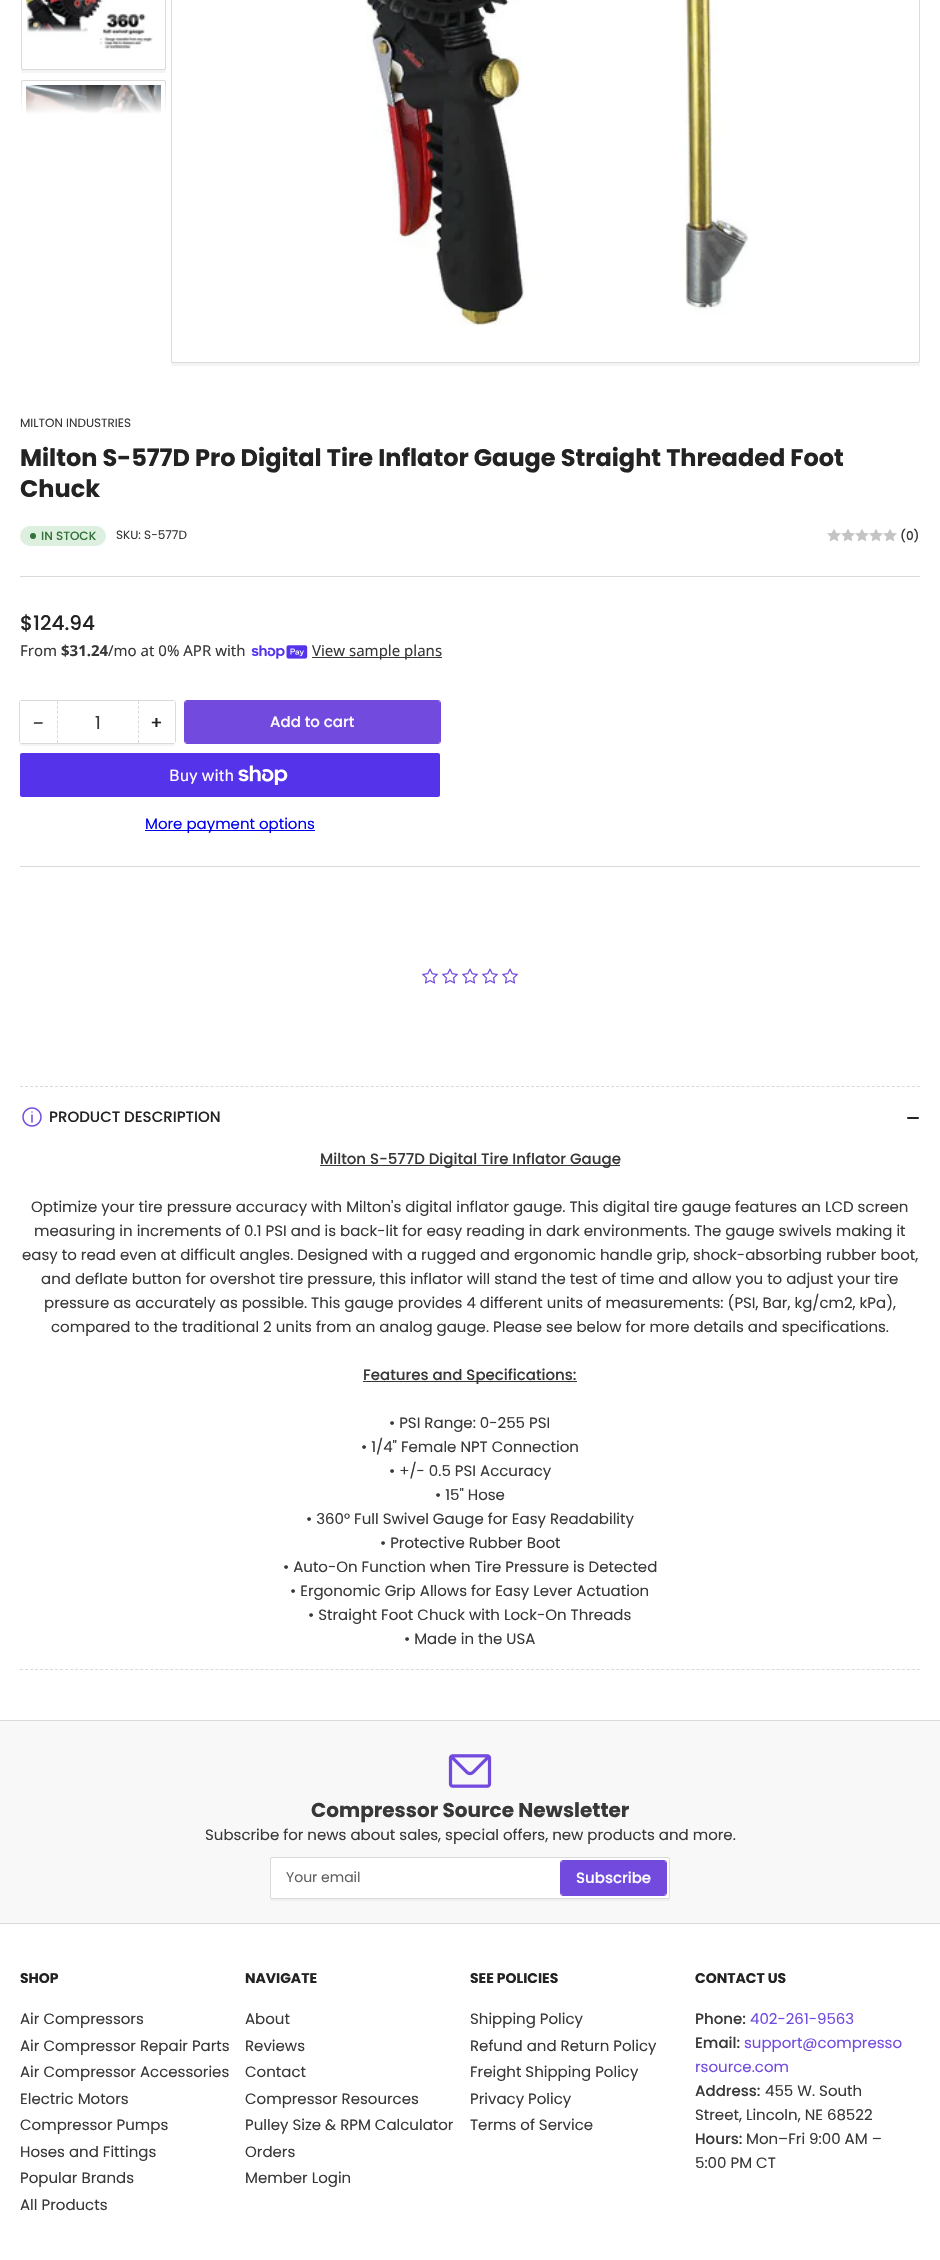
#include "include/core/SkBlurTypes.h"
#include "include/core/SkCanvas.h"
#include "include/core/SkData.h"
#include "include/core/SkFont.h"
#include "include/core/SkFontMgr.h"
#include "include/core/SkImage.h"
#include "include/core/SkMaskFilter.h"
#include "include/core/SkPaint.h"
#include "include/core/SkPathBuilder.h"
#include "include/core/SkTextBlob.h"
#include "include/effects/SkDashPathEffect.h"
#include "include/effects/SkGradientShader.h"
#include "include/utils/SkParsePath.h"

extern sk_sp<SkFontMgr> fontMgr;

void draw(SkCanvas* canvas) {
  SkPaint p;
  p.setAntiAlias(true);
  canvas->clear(SK_ColorWHITE);
  p.setColor(SkColorSetRGB(244, 244, 244));
  canvas->drawPath(SkPathBuilder().moveTo(21, 68).lineTo(21, 71).cubicTo(21, 72, 22, 73, 23, 73).lineTo(164, 73).cubicTo(165, 73, 166, 72, 166, 71).lineTo(166, 68).cubicTo(166, 69, 165, 70, 164, 70).lineTo(23, 70).cubicTo(22, 70, 21, 69, 21, 68).close().detach(), p);
  p.setStyle(SkPaint::kStroke_Style);
  p.setStrokeWidth(1);
  p.setColor(SkColorSetRGB(218, 218, 218));
  canvas->drawRoundRect(SkRect::MakeLTRB(21.5f, -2.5f, 165.5f, 69.5f), 1.5f, 1.5f, p);
  canvas->drawImageRect(SkImages::DeferredFromEncodedData(SkData::MakeFromFileName("images/1.png")), SkRect::MakeLTRB(26, 0, 153, 49), SkSamplingOptions());
  canvas->save();
  canvas->clipRect(SkRect::MakeLTRB(20, 0, 166, 114));
  canvas->drawRoundRect(SkRect::MakeLTRB(21.5f, 80.5f, 165.5f, 224.5f), 1.5f, 1.5f, p);
  canvas->restore();
  canvas->drawImageRect(SkImages::DeferredFromEncodedData(SkData::MakeFromFileName("images/2.png")), SkRect::MakeLTRB(26, 85, 161, 114), SkSamplingOptions());
  p.setStyle(SkPaint::kFill_Style);
  {
    const SkColor colors[] = {SK_ColorWHITE, SkColorSetARGB(0, 255, 255, 255)};
    const float stops[] = {0, 1};
    const SkPoint ends[] = {{93, 114}, {93, 79}};
    p.setShader(SkGradientShader::MakeLinear(ends, colors, stops, 2, SkTileMode::kClamp));
    p.setAlpha(255);
  }
  canvas->drawRect(SkRect::MakeLTRB(21, 82, 166, 114), p);
  p.setShader(nullptr);
  p.setColor(SkColorSetRGB(244, 244, 244));
  canvas->drawPath(SkPathBuilder().moveTo(171, 361).cubicTo(171, 363, 170, 366, 173, 366).lineTo(919, 366).lineTo(920, 365).lineTo(920, 361).cubicTo(920, 362, 919, 363, 918, 363).lineTo(173, 363).cubicTo(172, 363, 171, 362, 171, 361).close().detach(), p);
  p.setStyle(SkPaint::kStroke_Style);
  p.setColor(SkColorSetRGB(218, 218, 218));
  canvas->drawRoundRect(SkRect::MakeLTRB(171.5f, -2.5f, 919.5f, 362.5f), 1.5f, 1.5f, p);
  canvas->drawImageRect(SkImages::DeferredFromEncodedData(SkData::MakeFromFileName("images/3.png")), SkRect::MakeLTRB(366, 0, 749, 326), SkSamplingOptions());
  p.setStyle(SkPaint::kFill_Style);
  canvas->drawRect(SkRect::MakeLTRB(20, 576, 920, 577), p);
  p.setColor(SkColorSetRGB(221, 240, 223));
  canvas->drawRoundRect(SkRect::MakeLTRB(20, 526, 106, 546), 10, 10, p);
  p.setColor(SkColorSetRGB(51, 114, 57));
  canvas->drawCircle(33, 536, 3, p);
  canvas->drawImageRect(SkImages::DeferredFromEncodedData(SkData::MakeFromFileName("images/4.png")), SkRect::MakeLTRB(827, 529, 841, 542), SkSamplingOptions());
  canvas->drawImageRect(SkImages::DeferredFromEncodedData(SkData::MakeFromFileName("images/4.png")), SkRect::MakeLTRB(841, 529, 855, 542), SkSamplingOptions());
  canvas->drawImageRect(SkImages::DeferredFromEncodedData(SkData::MakeFromFileName("images/4.png")), SkRect::MakeLTRB(855, 529, 869, 542), SkSamplingOptions());
  canvas->drawImageRect(SkImages::DeferredFromEncodedData(SkData::MakeFromFileName("images/4.png")), SkRect::MakeLTRB(869, 529, 883, 542), SkSamplingOptions());
  canvas->drawImageRect(SkImages::DeferredFromEncodedData(SkData::MakeFromFileName("images/4.png")), SkRect::MakeLTRB(883, 529, 897, 542), SkSamplingOptions());
  canvas->drawImageRect(SkImages::DeferredFromEncodedData(SkData::MakeFromFileName("images/5.png")), SkRect::MakeLTRB(251, 645, 308, 659), SkSamplingOptions());
  p.setColor(SkColorSetRGB(56, 56, 56));
  canvas->drawRect(SkRect::MakeLTRB(312, 657, 442, 658), p);
  p.setColor(SkColorSetRGB(244, 244, 244));
  canvas->drawPath(SkPathBuilder().moveTo(20, 741).lineTo(20, 744).cubicTo(20, 745, 21, 746, 22, 746).lineTo(173, 746).cubicTo(174, 746, 175, 745, 175, 744).lineTo(175, 741).cubicTo(175, 742, 174, 743, 173, 743).lineTo(22, 743).cubicTo(21, 743, 20, 742, 20, 741).close().detach(), p);
  p.setStyle(SkPaint::kStroke_Style);
  p.setColor(SkColorSetRGB(218, 218, 218));
  canvas->drawRoundRect(SkRect::MakeLTRB(19.5f, 700.5f, 175.5f, 743.5f), 2.5f, 2.5f, p);
  p.setStyle(SkPaint::kFill_Style);
  p.setColor(SK_ColorWHITE);
  canvas->drawRect(SkRect::MakeLTRB(20, 701, 22, 743), p);
  p.setStyle(SkPaint::kStroke_Style);
  p.setColor(SkColorSetRGB(218, 218, 218));
  p.setPathEffect(SkDashPathEffect::Make({{3, 1.88f}}, 0));
  canvas->drawPath(SkPathBuilder().moveTo(138.5f, 701).lineTo(138.5f, 743).detach(), p);
  p.setPathEffect(nullptr);
  p.setPathEffect(SkDashPathEffect::Make({{3, 1.88f}}, 0));
  canvas->drawPath(SkPathBuilder().moveTo(57.5f, 701).lineTo(57.5f, 743).detach(), p);
  p.setPathEffect(nullptr);
  p.setStyle(SkPaint::kFill_Style);
  p.setColor(SK_ColorWHITE);
  canvas->drawRect(SkRect::MakeLTRB(173, 701, 175, 743), p);
  p.setStyle(SkPaint::kStroke_Style);
  p.setColor(SkColorSetRGB(114, 75, 222));
  canvas->drawRoundRect(SkRect::MakeLTRB(184.5f, 700.5f, 440.5f, 743.5f), 2.5f, 2.5f, p);
  p.setStyle(SkPaint::kFill_Style);
  canvas->drawRoundRect(SkRect::MakeLTRB(185, 701, 440, 743), 2, 2, p);
  p.setColor(SkColorSetRGB(84, 51, 235));
  canvas->drawRoundRect(SkRect::MakeLTRB(20, 753, 440, 797), 2, 2, p);
  canvas->drawImageRect(SkImages::DeferredFromEncodedData(SkData::MakeFromFileName("images/6.png")), SkRect::MakeLTRB(238, 765, 288, 785), SkSamplingOptions());
  p.setColor(SkColorSetRGB(0, 0, 238));
  canvas->drawRect(SkRect::MakeLTRB(145, 830, 315, 831), p);
  p.setColor(SkColorSetRGB(218, 218, 218));
  canvas->drawRect(SkRect::MakeLTRB(20, 866, 920, 867), p);
  canvas->drawImageRect(SkImages::DeferredFromEncodedData(SkData::MakeFromFileName("images/7.png")), SkRect::MakeLTRB(422, 968, 438, 984), SkSamplingOptions());
  canvas->drawImageRect(SkImages::DeferredFromEncodedData(SkData::MakeFromFileName("images/7.png")), SkRect::MakeLTRB(442, 968, 458, 984), SkSamplingOptions());
  canvas->drawImageRect(SkImages::DeferredFromEncodedData(SkData::MakeFromFileName("images/7.png")), SkRect::MakeLTRB(462, 968, 478, 984), SkSamplingOptions());
  canvas->drawImageRect(SkImages::DeferredFromEncodedData(SkData::MakeFromFileName("images/7.png")), SkRect::MakeLTRB(482, 968, 498, 984), SkSamplingOptions());
  canvas->drawImageRect(SkImages::DeferredFromEncodedData(SkData::MakeFromFileName("images/7.png")), SkRect::MakeLTRB(502, 968, 518, 984), SkSamplingOptions());
  p.setStyle(SkPaint::kStroke_Style);
  p.setPathEffect(SkDashPathEffect::Make({{3, 2.01f}}, 0));
  canvas->drawPath(SkPathBuilder().moveTo(20, 1086.5f).lineTo(920, 1086.5f).detach(), p);
  p.setPathEffect(nullptr);
  p.setPathEffect(SkDashPathEffect::Make({{3, 2.01f}}, 0));
  canvas->drawPath(SkPathBuilder().moveTo(20, 1669.5f).lineTo(920, 1669.5f).detach(), p);
  p.setPathEffect(nullptr);
  canvas->drawImageRect(SkImages::DeferredFromEncodedData(SkData::MakeFromFileName("images/8.png")), SkRect::MakeLTRB(22, 1107, 42, 1127), SkSamplingOptions());
  p.setStyle(SkPaint::kFill_Style);
  p.setColor(SkColorSetRGB(35, 35, 35));
  canvas->drawRoundRect(SkRect::MakeLTRB(907, 1117, 914, 1119), 1, 1, p);
  canvas->drawRoundRect(SkRect::MakeLTRB(911, 1117, 919, 1119), 1, 1, p);
  p.setColor(SkColorSetRGB(56, 56, 56));
  canvas->drawRect(SkRect::MakeLTRB(320, 1165, 620, 1166), p);
  canvas->drawRect(SkRect::MakeLTRB(363, 1381, 577, 1382), p);
  p.setColor(SkColorSetRGB(248, 248, 248));
  canvas->drawRect(SkRect::MakeLTRB(0, 1721, 940, 1923), p);
  p.setColor(SkColorSetRGB(218, 218, 218));
  canvas->drawRect(SkRect::MakeLTRB(0, 1720, 940, 1721), p);
  canvas->drawRect(SkRect::MakeLTRB(0, 1923, 940, 1924), p);
  canvas->drawImageRect(SkImages::DeferredFromEncodedData(SkData::MakeFromFileName("images/9.png")), SkRect::MakeLTRB(448, 1754, 492, 1788), SkSamplingOptions());
  p.setColor(SkColorSetRGB(239, 239, 239));
  canvas->drawPath(SkPathBuilder().moveTo(270, 1897).lineTo(270, 1899).cubicTo(270, 1900, 271, 1901, 272, 1901).lineTo(668, 1901).cubicTo(669, 1901, 670, 1900, 670, 1899).lineTo(670, 1897).cubicTo(670, 1898, 669, 1899, 668, 1899).lineTo(272, 1899).cubicTo(271, 1899, 270, 1898, 270, 1897).close().detach(), p);
  p.setColor(SK_ColorWHITE);
  canvas->drawRoundRect(SkRect::MakeLTRB(270.5f, 1857.5f, 669.5f, 1898.5f), 1.5f, 1.5f, p);
  p.setStyle(SkPaint::kStroke_Style);
  p.setColor(SkColorSetRGB(218, 218, 218));
  canvas->drawRoundRect(SkRect::MakeLTRB(270.5f, 1857.5f, 669.5f, 1898.5f), 1.5f, 1.5f, p);
  p.setColor(SkColorSetRGB(114, 75, 222));
  canvas->drawRoundRect(SkRect::MakeLTRB(560.5f, 1860.5f, 666.5f, 1895.5f), 2.5f, 2.5f, p);
  p.setStyle(SkPaint::kFill_Style);
  canvas->drawRoundRect(SkRect::MakeLTRB(561, 1861, 666, 1895), 2, 2, p);
  SkFont font1(fontMgr->matchFamilyStyle("Poppins", SkFontStyle::Normal()), 12);
  font1.setSubpixel(true);
  p.setColor(SkColorSetRGB(56, 56, 56));
  canvas->drawString("MILTON INDUSTRIES", 20, 427, font1, p);
  SkFont font2(fontMgr->matchFamilyStyle("Poppins", SkFontStyle::Bold()), 24);
  font2.setSubpixel(true);
  p.setColor(SkColorSetRGB(35, 35, 35));
  canvas->drawString("Milton S-577D Pro Digital Tire Inflator Gauge Straight Threaded Foot", 20, 466, font2, p);
  canvas->drawString("Chuck", 20, 497, font2, p);
  SkFont font3(fontMgr->matchFamilyStyle("Poppins", SkFontStyle(500, SkFontStyle::kNormal_Width, SkFontStyle::kUpright_Slant)), 12);
  font3.setSubpixel(true);
  p.setColor(SkColorSetRGB(51, 114, 57));
  canvas->drawString("IN STOCK", 41, 540, font3, p);
  p.setColor(SkColorSetRGB(56, 56, 56));
  canvas->drawString("SKU: S-577D", 116, 539, font1, p);
  canvas->drawString("(0)", 900, 540, font3, p);
  SkFont font4(fontMgr->matchFamilyStyle("Poppins", SkFontStyle(500, SkFontStyle::kNormal_Width, SkFontStyle::kUpright_Slant)), 20);
  font4.setSubpixel(true);
  p.setColor(SkColorSetRGB(35, 35, 35));
  canvas->drawString("$124.94", 20, 630, font4, p);
  SkFont font5(fontMgr->matchFamilyStyle("Noto Sans", SkFontStyle::Normal()), 15);
  font5.setSubpixel(true);
  p.setColor(SkColorSetRGB(56, 56, 56));
  canvas->drawString("From", 20, 656, font5, p);
  SkFont font6(fontMgr->matchFamilyStyle("Noto Sans", SkFontStyle::Bold()), 15);
  font6.setSubpixel(true);
  canvas->drawString("$31.24", 61, 656, font6, p);
  canvas->drawString("/mo at 0% APR with", 108, 656, font5, p);
  canvas->drawString("View sample plans", 312, 656, font5, p);
  SkFont font7(fontMgr->matchFamilyStyle("Liberation Sans", SkFontStyle::Normal()), 18);
  font7.setSubpixel(true);
  p.setColor(SkColorSetRGB(35, 35, 35));
  canvas->drawString("−", 33, 729, font7, p);
  SkFont font8(fontMgr->matchFamilyStyle("Poppins", SkFontStyle::Normal()), 18);
  font8.setSubpixel(true);
  p.setColor(SkColorSetRGB(56, 56, 56));
  canvas->drawString("1", 95, 729, font8, p);
  SkFont font9(fontMgr->matchFamilyStyle("Poppins", SkFontStyle(500, SkFontStyle::kNormal_Width, SkFontStyle::kUpright_Slant)), 18);
  font9.setSubpixel(true);
  p.setColor(SkColorSetRGB(35, 35, 35));
  canvas->drawString("+", 150, 729, font9, p);
  SkFont font10(fontMgr->matchFamilyStyle("Poppins", SkFontStyle(500, SkFontStyle::kNormal_Width, SkFontStyle::kUpright_Slant)), 15);
  font10.setSubpixel(true);
  p.setColor(SK_ColorWHITE);
  canvas->drawString("Add to cart", 270, 727, font10, p);
  SkFont font11(fontMgr->matchFamilyStyle("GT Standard", SkFontStyle::Normal()), 16);
  font11.setSubpixel(true);
  canvas->drawString("Buy with", 169, 781, font11, p);
  SkFont font12(fontMgr->matchFamilyStyle("Poppins", SkFontStyle::Normal()), 15);
  font12.setSubpixel(true);
  p.setColor(SkColorSetRGB(0, 0, 238));
  canvas->drawString("More payment options", 145, 829, font12, p);
  p.setColor(SkColorSetRGB(35, 35, 35));
  canvas->drawString("PRODUCT DESCRIPTION", 49, 1122, font10, p);
  p.setColor(SkColorSetRGB(56, 56, 56));
  canvas->drawString("Milton S-577D Digital Tire Inflator Gauge", 320, 1164, font10, p);
  canvas->drawString("Optimize your tire pressure accuracy with Milton's digital inflator gauge. This digital tire gauge features an LCD screen", 31, 1212, font12, p);
  canvas->drawString("measuring in increments of 0.1 PSI and is back-lit for easy reading in dark environments. The gauge swivels making it", 34, 1236, font12, p);
  canvas->drawString("easy to read even at difficult angles. Designed with a rugged and ergonomic handle grip, shock-absorbing rubber boot,", 22, 1260, font12, p);
  canvas->drawString("and deflate button for overshot tire pressure, this inflator will stand the test of time and allow you to adjust your tire", 41, 1284, font12, p);
  canvas->drawString("pressure as accurately as possible. This gauge provides 4 different units of measurements: (PSI, Bar, kg/cm2, kPa),", 44, 1308, font12, p);
  canvas->drawString("compared to the traditional 2 units from an analog gauge. Please see below for more details and specifications.", 51, 1332, font12, p);
  canvas->drawString("Features and Specifications:", 363, 1380, font10, p);
  canvas->drawString("• PSI Range: 0-255 PSI", 389, 1428, font12, p);
  canvas->drawString("• 1/4\" Female NPT Connection", 361, 1452, font12, p);
  canvas->drawString("• +/- 0.5 PSI Accuracy", 389, 1476, font12, p);
  canvas->drawString("• 15\" Hose", 435, 1500, font12, p);
  canvas->drawString("• 360° Full Swivel Gauge for Easy Readability", 306, 1524, font12, p);
  canvas->drawString("• Protective Rubber Boot", 380, 1548, font12, p);
  canvas->drawString("• Auto-On Function when Tire Pressure is Detected", 283, 1572, font12, p);
  canvas->drawString("• Ergonomic Grip Allows for Easy Lever Actuation", 290, 1596, font12, p);
  canvas->drawString("• Straight Foot Chuck with Lock-On Threads", 308, 1620, font12, p);
  canvas->drawString("• Made in the USA", 404, 1644, font12, p);
  SkFont font13(fontMgr->matchFamilyStyle("Poppins", SkFontStyle::Bold()), 20);
  font13.setSubpixel(true);
  canvas->drawString("Compressor Source Newsletter", 311, 1817, font13, p);
  canvas->drawString("Subscribe for news about sales, special offers, new products and more.", 205, 1840, font12, p);
  SkFont font14(fontMgr->matchFamilyStyle("Poppins", SkFontStyle::Normal()), 14);
  font14.setSubpixel(true);
  p.setColor(SkColorSetRGB(96, 96, 96));
  canvas->drawString("Your email", 286, 1882, font14, p);
  p.setColor(SK_ColorWHITE);
  canvas->drawString("Subscribe", 576, 1883, font10, p);
  SkFont font15(fontMgr->matchFamilyStyle("Poppins", SkFontStyle::Bold()), 14);
  font15.setSubpixel(true);
  p.setColor(SkColorSetRGB(35, 35, 35));
  canvas->drawString("SHOP", 20, 1983, font15, p);
  p.setColor(SkColorSetRGB(56, 56, 56));
  canvas->drawString("Air Compressors", 20, 2024, font12, p);
  canvas->drawString("Air Compressor Repair Parts", 20, 2051, font12, p);
  canvas->drawString("Air Compressor Accessories", 20, 2077, font12, p);
  canvas->drawString("Electric Motors", 20, 2104, font12, p);
  canvas->drawString("Compressor Pumps", 20, 2130, font12, p);
  canvas->drawString("Hoses and Fittings", 20, 2157, font12, p);
  canvas->drawString("Popular Brands", 20, 2183, font12, p);
  canvas->drawString("All Products", 20, 2210, font12, p);
  p.setColor(SkColorSetRGB(35, 35, 35));
  canvas->drawString("NAVIGATE", 245, 1983, font15, p);
  p.setColor(SkColorSetRGB(56, 56, 56));
  canvas->drawString("About", 245, 2024, font12, p);
  canvas->drawString("Reviews", 245, 2051, font12, p);
  canvas->drawString("Contact", 245, 2077, font12, p);
  canvas->drawString("Compressor Resources", 245, 2104, font12, p);
  canvas->drawString("Pulley Size & RPM Calculator", 245, 2130, font12, p);
  canvas->drawString("Orders", 245, 2157, font12, p);
  canvas->drawString("Member Login", 245, 2183, font12, p);
  p.setColor(SkColorSetRGB(35, 35, 35));
  canvas->drawString("SEE POLICIES", 470, 1983, font15, p);
  p.setColor(SkColorSetRGB(56, 56, 56));
  canvas->drawString("Shipping Policy", 470, 2024, font12, p);
  canvas->drawString("Refund and Return Policy", 470, 2051, font12, p);
  canvas->drawString("Freight Shipping Policy", 470, 2077, font12, p);
  canvas->drawString("Privacy Policy", 470, 2104, font12, p);
  canvas->drawString("Terms of Service", 470, 2130, font12, p);
  p.setColor(SkColorSetRGB(35, 35, 35));
  canvas->drawString("CONTACT US", 695, 1983, font15, p);
  p.setColor(SkColorSetRGB(56, 56, 56));
  canvas->drawString("Phone:", 695, 2024, font10, p);
  p.setColor(SkColorSetRGB(114, 75, 222));
  canvas->drawString("402-261-9563", 750, 2024, font12, p);
  p.setColor(SkColorSetRGB(56, 56, 56));
  canvas->drawString("Email:", 695, 2048, font10, p);
  p.setColor(SkColorSetRGB(114, 75, 222));
  canvas->drawString("support@compresso", 744, 2048, font12, p);
  canvas->drawString("rsource.com", 695, 2072, font12, p);
  p.setColor(SkColorSetRGB(56, 56, 56));
  canvas->drawString("Address:", 695, 2096, font10, p);
  canvas->drawString("455 W. South", 765, 2096, font12, p);
  canvas->drawString("Street, Lincoln, NE 68522", 695, 2120, font12, p);
  canvas->drawString("Hours:", 695, 2144, font10, p);
  canvas->drawString("Mon–Fri 9:00 AM –", 746, 2144, font12, p);
  canvas->drawString("5:00 PM CT", 695, 2168, font12, p);
}
